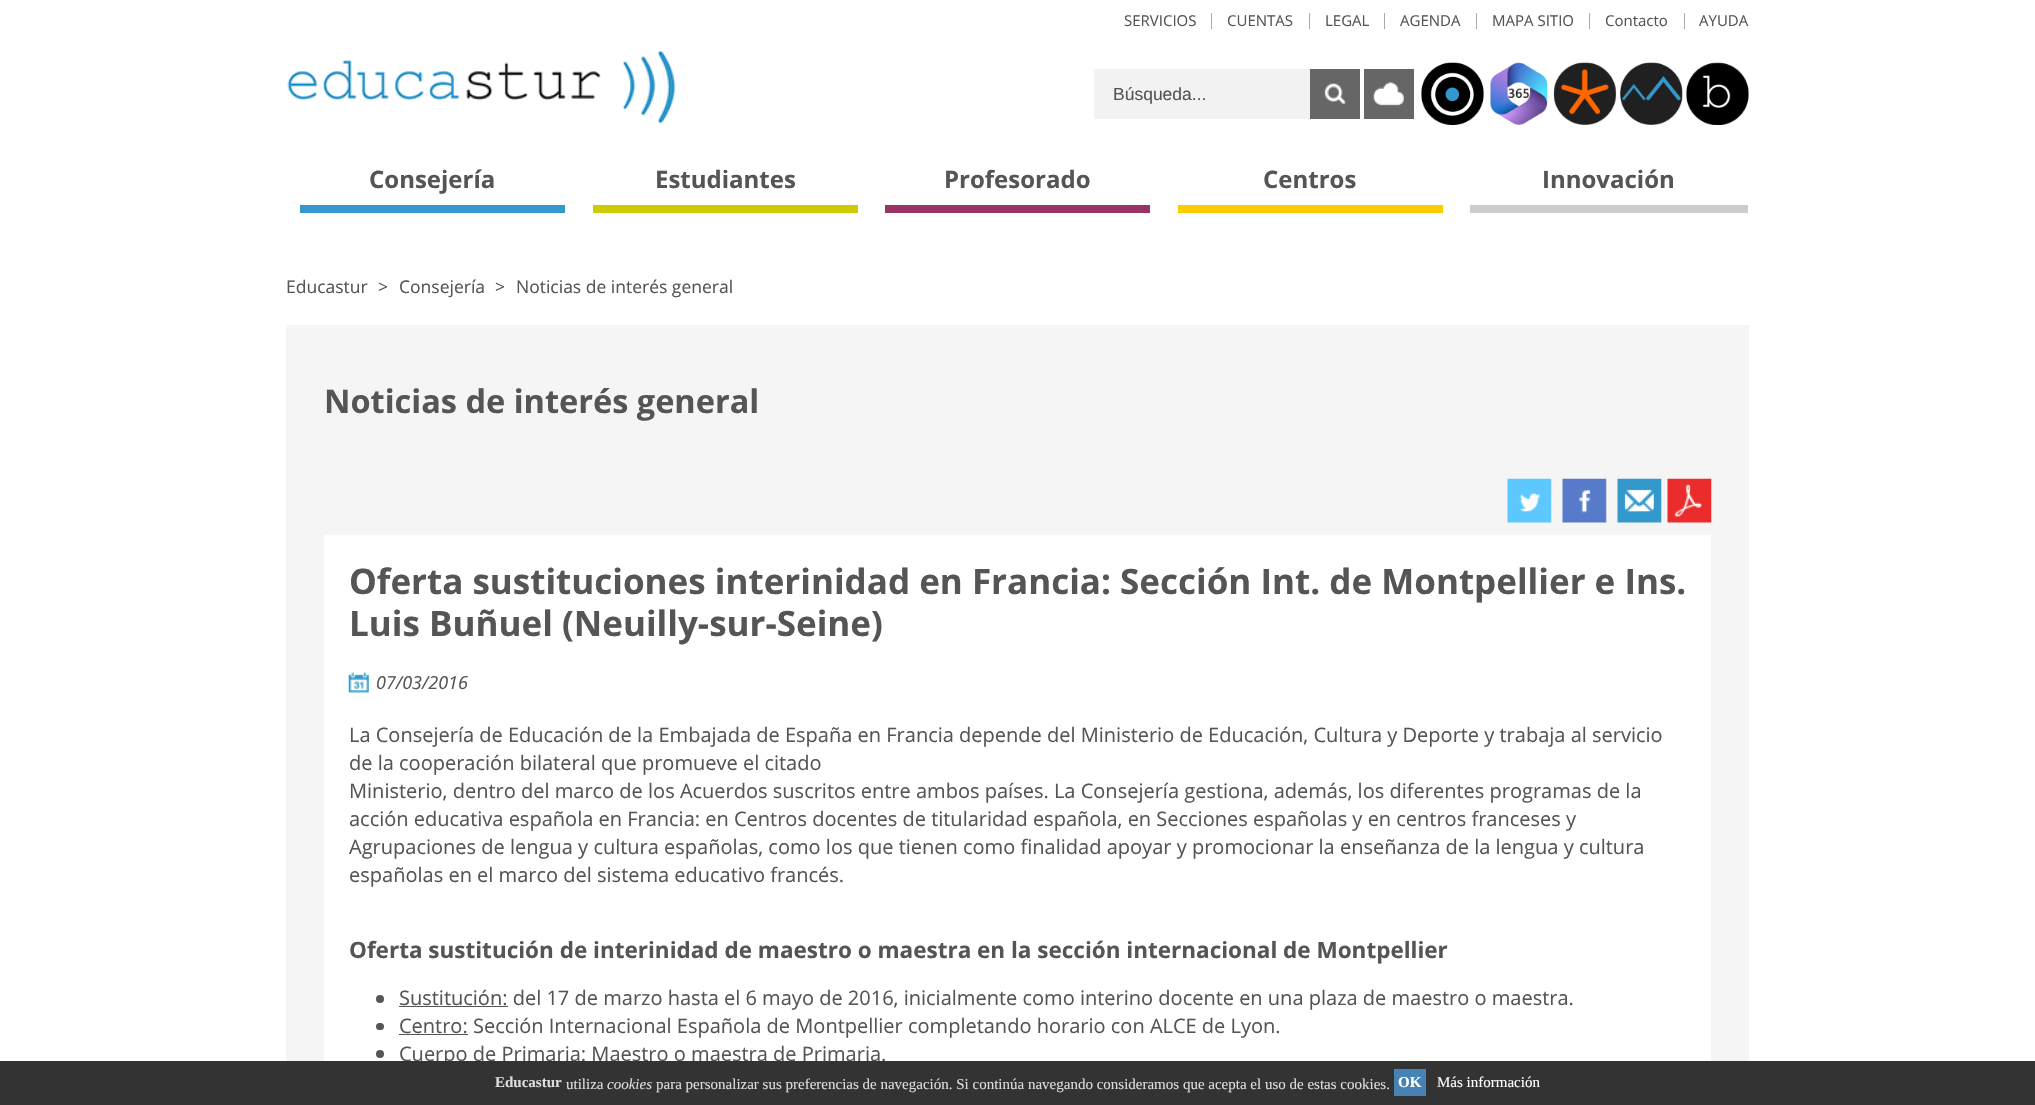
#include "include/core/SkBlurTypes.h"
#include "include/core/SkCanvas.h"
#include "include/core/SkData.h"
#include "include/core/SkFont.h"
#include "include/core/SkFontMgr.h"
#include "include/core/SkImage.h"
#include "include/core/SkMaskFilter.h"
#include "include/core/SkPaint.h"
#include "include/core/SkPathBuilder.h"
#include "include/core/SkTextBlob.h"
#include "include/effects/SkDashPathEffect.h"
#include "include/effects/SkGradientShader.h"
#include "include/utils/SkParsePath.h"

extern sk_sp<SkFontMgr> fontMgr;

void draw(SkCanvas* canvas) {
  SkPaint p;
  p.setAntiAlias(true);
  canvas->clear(SK_ColorWHITE);
  p.setColor(SkColorSetRGB(170, 170, 170));
  canvas->drawRect(SkRect::MakeLTRB(1211, 13, 1212, 29), p);
  canvas->drawRect(SkRect::MakeLTRB(1309, 13, 1310, 29), p);
  canvas->drawRect(SkRect::MakeLTRB(1384, 13, 1385, 29), p);
  canvas->drawRect(SkRect::MakeLTRB(1476, 13, 1477, 29), p);
  canvas->drawRect(SkRect::MakeLTRB(1589, 13, 1590, 29), p);
  canvas->drawRect(SkRect::MakeLTRB(1684, 13, 1685, 29), p);
  canvas->drawImageRect(SkImages::DeferredFromEncodedData(SkData::MakeFromFileName("images/1.png")), SkRect::MakeLTRB(287, 51, 676, 124), SkSamplingOptions());
  p.setColor(SkColorSetRGB(242, 242, 242));
  canvas->drawRect(SkRect::MakeLTRB(1094, 69, 1310, 119), p);
  p.setColor(SkColorSetRGB(102, 102, 102));
  canvas->drawRect(SkRect::MakeLTRB(1310, 69, 1360, 119), p);
  canvas->drawImageRect(SkImages::DeferredFromEncodedData(SkData::MakeFromFileName("images/2.png")), SkRect::MakeLTRB(1324, 83, 1346, 104), SkSamplingOptions());
  canvas->drawRect(SkRect::MakeLTRB(1364, 69, 1414, 119), p);
  canvas->drawImageRect(SkImages::DeferredFromEncodedData(SkData::MakeFromFileName("images/3.png")), SkRect::MakeLTRB(1373, 82, 1404, 106), SkSamplingOptions());
  canvas->drawImageRect(SkImages::DeferredFromEncodedData(SkData::MakeFromFileName("images/4.png")), SkRect::MakeLTRB(1421, 62, 1484, 125), SkSamplingOptions());
  canvas->drawImageRect(SkImages::DeferredFromEncodedData(SkData::MakeFromFileName("images/5.png")), SkRect::MakeLTRB(1490, 62, 1548, 125), SkSamplingOptions());
  canvas->drawImageRect(SkImages::DeferredFromEncodedData(SkData::MakeFromFileName("images/6.png")), SkRect::MakeLTRB(1553, 62, 1617, 125), SkSamplingOptions());
  canvas->drawImageRect(SkImages::DeferredFromEncodedData(SkData::MakeFromFileName("images/7.png")), SkRect::MakeLTRB(1620, 62, 1683, 125), SkSamplingOptions());
  canvas->drawImageRect(SkImages::DeferredFromEncodedData(SkData::MakeFromFileName("images/8.png")), SkRect::MakeLTRB(1686, 62, 1749, 125), SkSamplingOptions());
  p.setColor(SkColorSetRGB(51, 153, 204));
  canvas->drawRect(SkRect::MakeLTRB(300, 205, 565, 213), p);
  p.setColor(SkColorSetRGB(204, 204, 0));
  canvas->drawRect(SkRect::MakeLTRB(593, 205, 858, 213), p);
  p.setColor(SkColorSetRGB(153, 51, 102));
  canvas->drawRect(SkRect::MakeLTRB(885, 205, 1150, 213), p);
  p.setColor(SkColorSetRGB(255, 204, 0));
  canvas->drawRect(SkRect::MakeLTRB(1178, 205, 1443, 213), p);
  p.setColor(SkColorSetRGB(204, 204, 204));
  canvas->drawRect(SkRect::MakeLTRB(1470, 205, 1748, 213), p);
  p.setColor(SkColorSetRGB(245, 245, 245));
  canvas->drawRect(SkRect::MakeLTRB(286, 325, 1749, 1061), p);
  canvas->drawImageRect(SkImages::DeferredFromEncodedData(SkData::MakeFromFileName("images/9.png")), SkRect::MakeLTRB(1507, 478, 1552, 523), SkSamplingOptions());
  canvas->drawImageRect(SkImages::DeferredFromEncodedData(SkData::MakeFromFileName("images/10.png")), SkRect::MakeLTRB(1562, 478, 1607, 523), SkSamplingOptions());
  canvas->drawImageRect(SkImages::DeferredFromEncodedData(SkData::MakeFromFileName("images/11.png")), SkRect::MakeLTRB(1617, 478, 1662, 523), SkSamplingOptions());
  canvas->drawImageRect(SkImages::DeferredFromEncodedData(SkData::MakeFromFileName("images/12.png")), SkRect::MakeLTRB(1667, 478, 1712, 523), SkSamplingOptions());
  p.setColor(SK_ColorWHITE);
  canvas->drawRect(SkRect::MakeLTRB(324, 535, 1711, 1061), p);
  canvas->drawImageRect(SkImages::DeferredFromEncodedData(SkData::MakeFromFileName("images/13.png")), SkRect::MakeLTRB(348, 672, 369, 693), SkSamplingOptions());
  p.setColor(SkColorSetRGB(85, 85, 85));
  canvas->drawCircle(380, 999, 4, p);
  canvas->drawRect(SkRect::MakeLTRB(399, 1006, 508, 1007), p);
  canvas->drawRoundRect(SkRect::MakeLTRB(376, 1023, 384, 1030), 3.5f, 3.5f, p);
  canvas->drawRect(SkRect::MakeLTRB(399, 1034, 468, 1035), p);
  canvas->drawCircle(380, 1054, 4, p);
  SkFont font1(fontMgr->matchFamilyStyle("Open Sans", SkFontStyle::Normal()), 15);
  font1.setSubpixel(true);
  canvas->drawString("SERVICIOS", 1124, 26, font1, p);
  canvas->drawString("CUENTAS", 1227, 26, font1, p);
  canvas->drawString("LEGAL", 1325, 26, font1, p);
  canvas->drawString("AGENDA", 1400, 26, font1, p);
  canvas->drawString("MAPA SITIO", 1492, 26, font1, p);
  canvas->drawString("Contacto", 1605, 26, font1, p);
  canvas->drawString("AYUDA", 1699, 26, font1, p);
  SkFont font2(fontMgr->matchFamilyStyle("Liberation Sans", SkFontStyle::Normal()), 17.5f);
  font2.setSubpixel(true);
  canvas->drawString("Búsqueda...", 1113, 100, font2, p);
  SkFont font3(fontMgr->matchFamilyStyle("Open Sans", SkFontStyle::Bold()), 24);
  font3.setSubpixel(true);
  canvas->drawString("Consejería", 369, 188, font3, p);
  canvas->drawString("Estudiantes", 655, 188, font3, p);
  canvas->drawString("Profesorado", 944, 188, font3, p);
  canvas->drawString("Centros", 1263, 188, font3, p);
  canvas->drawString("Innovación", 1542, 188, font3, p);
  SkFont font4(fontMgr->matchFamilyStyle("Open Sans", SkFontStyle::Normal()), 17.5f);
  font4.setSubpixel(true);
  canvas->drawString("Educastur", 286, 293, font4, p);
  canvas->drawString(">", 378, 293, font4, p);
  canvas->drawString("Consejería", 399, 293, font4, p);
  canvas->drawString(">", 495, 293, font4, p);
  canvas->drawString("Noticias de interés general", 516, 293, font4, p);
  SkFont font5(fontMgr->matchFamilyStyle("Open Sans", SkFontStyle::Bold()), 32.5f);
  font5.setSubpixel(true);
  canvas->drawString("Noticias de interés general", 324, 413, font5, p);
  SkFont font6(fontMgr->matchFamilyStyle("Open Sans", SkFontStyle::Bold()), 35);
  font6.setSubpixel(true);
  canvas->drawString("Oferta sustituciones interinidad en Francia: Sección Int. de Montpellier e Ins.", 349, 594, font6, p);
  canvas->drawString("Luis Buñuel (Neuilly-sur-Seine)", 349, 636, font6, p);
  SkFont font7(fontMgr->matchFamilyStyle("Open Sans", SkFontStyle::Italic()), 18);
  font7.setSubpixel(true);
  canvas->drawString("07/03/2016", 376, 689, font7, p);
  SkFont font8(fontMgr->matchFamilyStyle("Open Sans", SkFontStyle::Normal()), 20);
  font8.setSubpixel(true);
  canvas->drawString("La Consejería de Educación de la Embajada de España en Francia depende del Ministerio de Educación, Cultura y Deporte y trabaja al servicio", 349, 742, font8, p);
  canvas->drawString("de la cooperación bilateral que promueve el citado", 349, 770, font8, p);
  canvas->drawString("Ministerio, dentro del marco de los Acuerdos suscritos entre ambos países. La Consejería gestiona, además, los diferentes programas de la", 349, 798, font8, p);
  canvas->drawString("acción educativa española en Francia: en Centros docentes de titularidad española, en Secciones españolas y en centros franceses y", 349, 826, font8, p);
  canvas->drawString("Agrupaciones de lengua y cultura españolas, como los que tienen como finalidad apoyar y promocionar la enseñanza de la lengua y cultura", 349, 854, font8, p);
  canvas->drawString("españolas en el marco del sistema educativo francés.", 349, 882, font8, p);
  SkFont font9(fontMgr->matchFamilyStyle("Open Sans", SkFontStyle::Bold()), 22.5f);
  font9.setSubpixel(true);
  canvas->drawString("Oferta sustitución de interinidad de maestro o maestra en la sección internacional de Montpellier", 349, 958, font9, p);
  canvas->drawString("Sustitución: del 17 de marzo hasta el 6 mayo de 2016, inicialmente como interino docente en una plaza de maestro o maestra.", 399, 1005, font8, p);
  canvas->drawString("Centro: Sección Internacional Española de Montpellier completando horario con ALCE de Lyon.", 399, 1033, font8, p);
  canvas->drawString("Cuerpo de Primaria: Maestro o maestra de Primaria.", 399, 1061, font8, p);
  p.setColor(SkColorSetRGB(51, 51, 51));
  canvas->drawRect(SkRect::MakeLTRB(0, 1061, 2035, 1105), p);
  SkFont font10(fontMgr->matchFamilyStyle("Liberation Serif", SkFontStyle::Bold()), 15);
  font10.setSubpixel(true);
  p.setColor(SkColorSetRGB(221, 221, 221));
  canvas->drawString("Educastur", 495, 1087, font10, p);
  SkFont font11(fontMgr->matchFamilyStyle("Liberation Serif", SkFontStyle::Normal()), 15);
  font11.setSubpixel(true);
  canvas->drawString("utiliza", 566, 1089, font11, p);
  SkFont font12(fontMgr->matchFamilyStyle("Liberation Serif", SkFontStyle::Italic()), 15);
  font12.setSubpixel(true);
  canvas->drawString("cookies", 607, 1089, font12, p);
  canvas->drawString("para personalizar sus preferencias de navegación. Si continúa navegando consideramos que acepta el uso de estas cookies.", 656, 1089, font11, p);
  p.setColor(SkColorSetRGB(70, 130, 180));
  canvas->drawRect(SkRect::MakeLTRB(1394, 1069, 1426, 1096), p);
  p.setColor(SK_ColorWHITE);
  canvas->drawString("OK", 1398, 1087, font10, p);
  canvas->drawString("Más información", 1437, 1087, font11, p);
}
